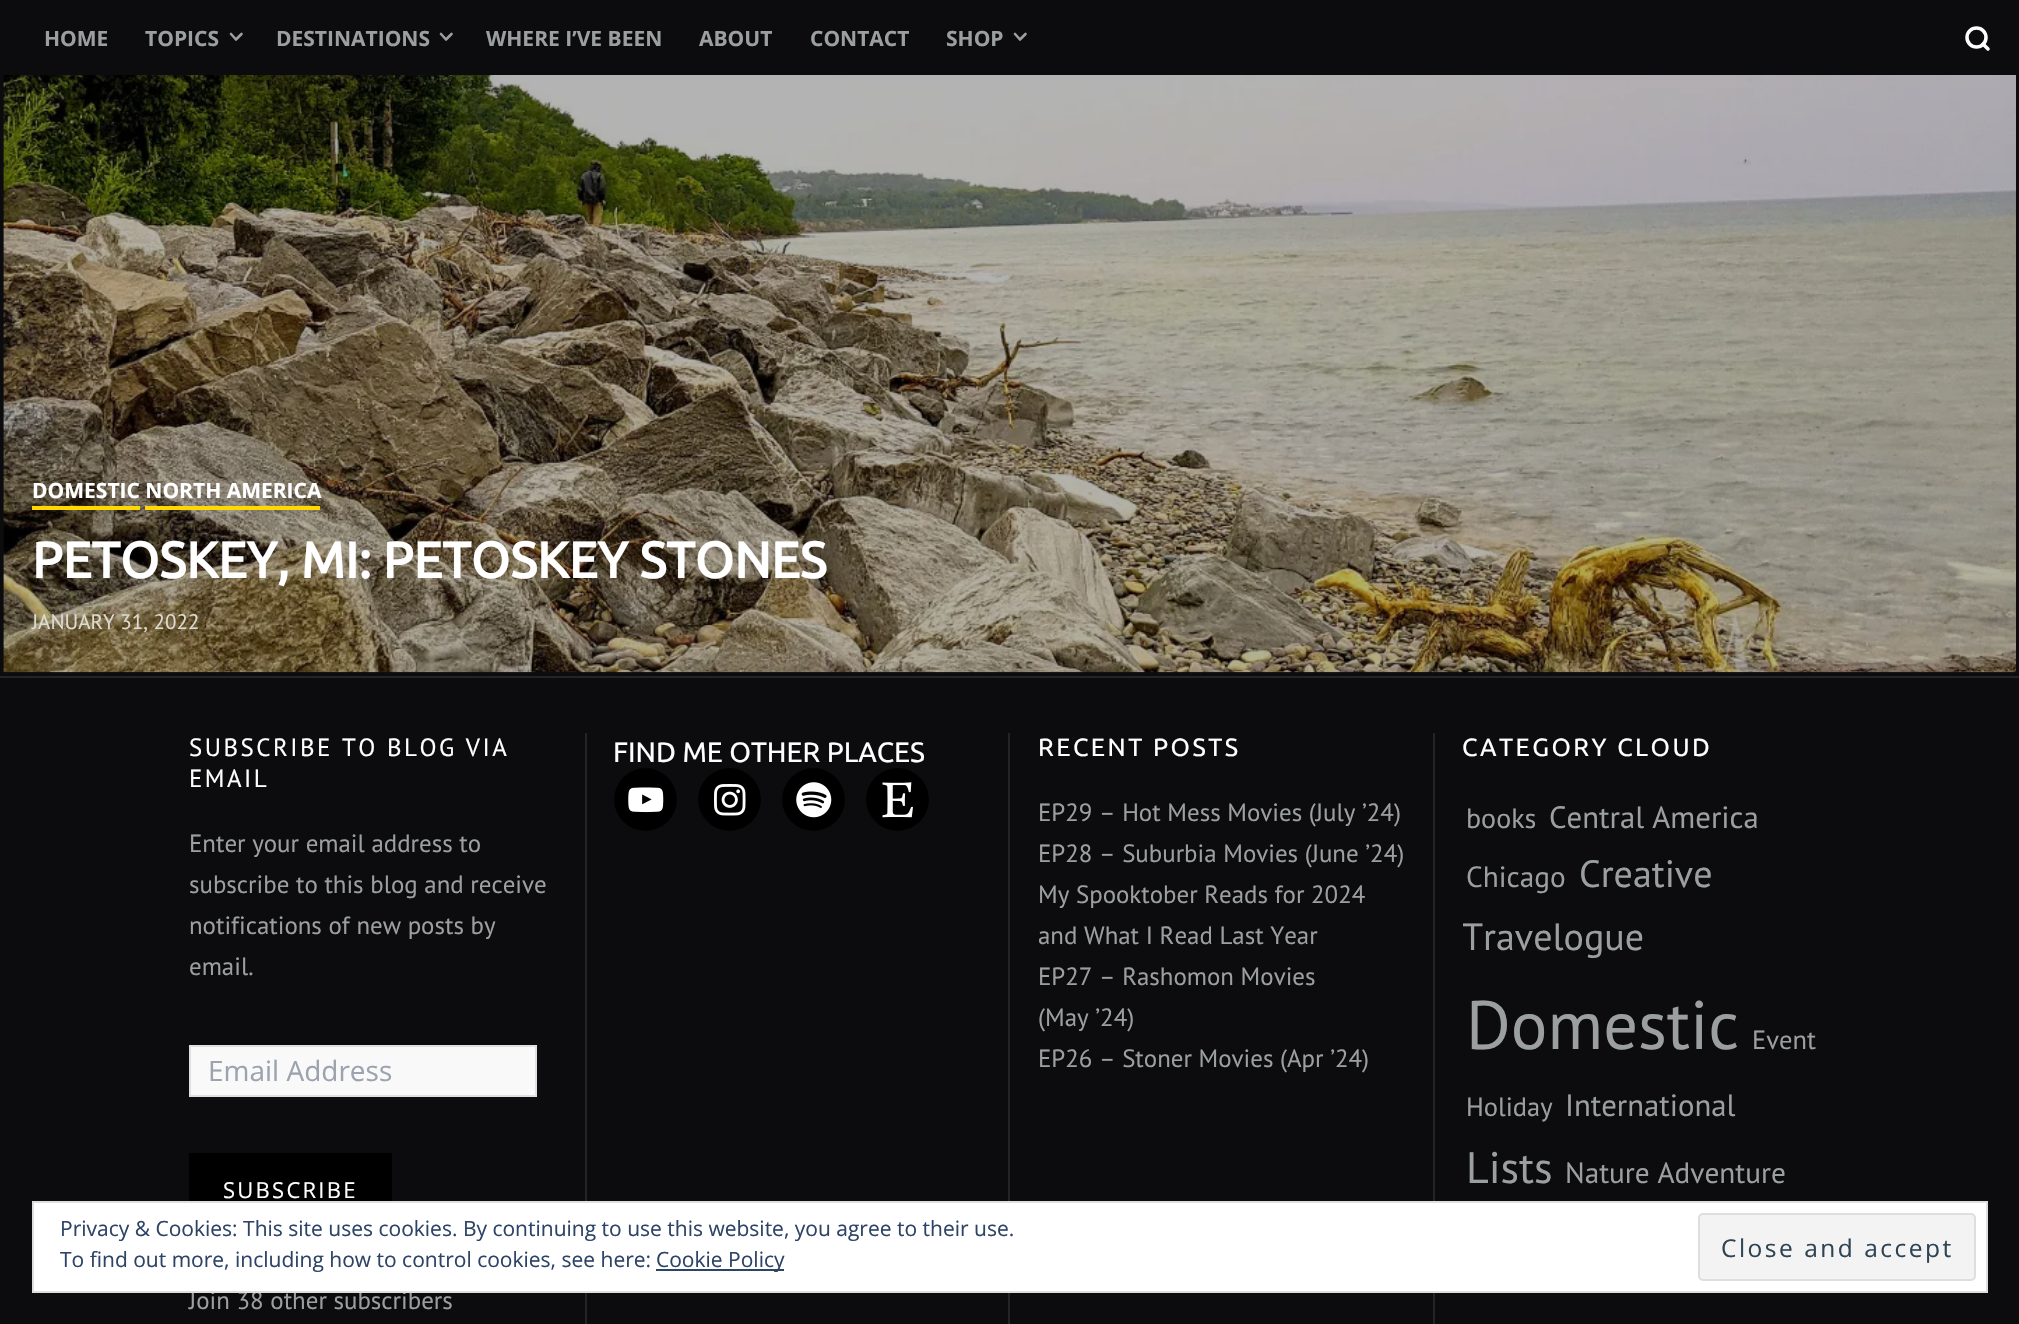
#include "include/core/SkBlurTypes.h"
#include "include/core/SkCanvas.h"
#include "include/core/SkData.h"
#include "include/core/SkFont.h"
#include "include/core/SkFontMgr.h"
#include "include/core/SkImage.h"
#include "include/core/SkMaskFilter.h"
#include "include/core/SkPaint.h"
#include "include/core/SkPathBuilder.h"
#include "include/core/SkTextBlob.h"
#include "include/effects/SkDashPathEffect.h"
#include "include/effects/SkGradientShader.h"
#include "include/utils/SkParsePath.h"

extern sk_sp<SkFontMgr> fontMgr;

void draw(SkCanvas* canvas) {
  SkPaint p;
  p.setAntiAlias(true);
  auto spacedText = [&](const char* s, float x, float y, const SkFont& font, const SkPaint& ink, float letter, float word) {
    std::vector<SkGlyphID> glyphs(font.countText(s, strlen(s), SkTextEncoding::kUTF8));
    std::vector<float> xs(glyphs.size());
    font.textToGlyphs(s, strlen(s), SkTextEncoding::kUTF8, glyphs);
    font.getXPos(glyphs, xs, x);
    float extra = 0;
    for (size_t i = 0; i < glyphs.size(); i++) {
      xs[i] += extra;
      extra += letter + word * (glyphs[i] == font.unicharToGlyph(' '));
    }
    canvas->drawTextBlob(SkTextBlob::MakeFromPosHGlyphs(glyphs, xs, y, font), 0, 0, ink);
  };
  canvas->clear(SkColorSetRGB(12, 12, 14));
  p.setStyle(SkPaint::kStroke_Style);
  p.setStrokeWidth(2.6f);
  p.setStrokeCap(SkPaint::kRound_Cap);
  p.setStrokeJoin(SkPaint::kRound_Join);
  p.setColor(SkColorSetRGB(156, 159, 160));
  canvas->drawPath(SkPathBuilder().moveTo(231, 34).lineTo(236, 39.5f).lineTo(241.5f, 34).detach(), p);
  canvas->drawPath(SkPathBuilder().moveTo(441, 34).lineTo(446, 39.5f).lineTo(451.5f, 34).detach(), p);
  canvas->drawPath(SkPathBuilder().moveTo(1015, 34).lineTo(1020, 39.5f).lineTo(1025.5f, 34).detach(), p);
  p.setStrokeWidth(3.5f);
  p.setStrokeCap(SkPaint::kButt_Cap);
  p.setStrokeJoin(SkPaint::kMiter_Join);
  p.setColor(SK_ColorWHITE);
  canvas->drawCircle(1976.5f, 37.5f, 9.5f, p);
  p.setStrokeCap(SkPaint::kRound_Cap);
  p.setStrokeJoin(SkPaint::kRound_Join);
  canvas->drawPath(SkPathBuilder().moveTo(1988, 49).lineTo(1983, 44).detach(), p);
  canvas->drawImageRect(SkImages::DeferredFromEncodedData(SkData::MakeFromFileName("images/1.png")), SkRect::MakeLTRB(3, 75, 2016, 673), SkSamplingOptions());
  p.setStyle(SkPaint::kFill_Style);
  p.setColor(SkColorSetRGB(255, 216, 0));
  canvas->drawRect(SkRect::MakeLTRB(32, 506, 140, 510), p);
  canvas->drawRect(SkRect::MakeLTRB(145, 506, 320, 510), p);
  p.setColor(SkColorSetRGB(36, 36, 38));
  canvas->drawRect(SkRect::MakeLTRB(0, 676, 2019, 678), p);
  canvas->drawRect(SkRect::MakeLTRB(585, 733, 587, 1324), p);
  p.setColor(SkColorSetRGB(249, 249, 249));
  canvas->drawRect(SkRect::MakeLTRB(190, 1046, 536, 1096), p);
  p.setStyle(SkPaint::kStroke_Style);
  p.setStrokeWidth(2);
  p.setStrokeCap(SkPaint::kButt_Cap);
  p.setStrokeJoin(SkPaint::kMiter_Join);
  p.setColor(SkColorSetRGB(224, 224, 224));
  canvas->drawRect(SkRect::MakeLTRB(190, 1046, 536, 1096), p);
  p.setStyle(SkPaint::kFill_Style);
  p.setColor(SK_ColorBLACK);
  canvas->drawRect(SkRect::MakeLTRB(189, 1153, 392, 1201), p);
  p.setColor(SkColorSetRGB(36, 36, 38));
  canvas->drawRect(SkRect::MakeLTRB(1008, 733, 1010, 1324), p);
  p.setColor(SK_ColorBLACK);
  canvas->drawCircle(645.5f, 799.5f, 31.5f, p);
  canvas->drawImageRect(SkImages::DeferredFromEncodedData(SkData::MakeFromFileName("images/2.png")), SkRect::MakeLTRB(628, 787, 664, 813), SkSamplingOptions());
  canvas->drawCircle(729.5f, 799.5f, 31.5f, p);
  canvas->drawImageRect(SkImages::DeferredFromEncodedData(SkData::MakeFromFileName("images/3.png")), SkRect::MakeLTRB(714, 784, 746, 816), SkSamplingOptions());
  canvas->drawCircle(813.5f, 799.5f, 31.5f, p);
  canvas->drawImageRect(SkImages::DeferredFromEncodedData(SkData::MakeFromFileName("images/4.png")), SkRect::MakeLTRB(796, 782, 832, 818), SkSamplingOptions());
  canvas->drawCircle(897.5f, 799.5f, 31.5f, p);
  canvas->drawImageRect(SkImages::DeferredFromEncodedData(SkData::MakeFromFileName("images/5.png")), SkRect::MakeLTRB(882, 782, 913, 818), SkSamplingOptions());
  p.setColor(SkColorSetRGB(36, 36, 38));
  canvas->drawRect(SkRect::MakeLTRB(1433, 733, 1435, 1324), p);
  SkFont font1(fontMgr->matchFamilyStyle("Open Sans", SkFontStyle::Bold()), 21);
  font1.setSubpixel(true);
  p.setColor(SkColorSetRGB(156, 159, 160));
  canvas->drawString("HOME", 44, 46, font1, p);
  canvas->drawString("TOPICS", 145, 46, font1, p);
  canvas->drawString("DESTINATIONS", 276, 46, font1, p);
  canvas->drawString("WHERE I’VE BEEN", 486, 46, font1, p);
  canvas->drawString("ABOUT", 699, 46, font1, p);
  canvas->drawString("CONTACT", 810, 46, font1, p);
  canvas->drawString("SHOP", 946, 46, font1, p);
  p.setColor(SK_ColorWHITE);
  canvas->drawString("DOMESTIC NORTH AMERICA", 32, 498, font1, p);
  SkFont font2(fontMgr->matchFamilyStyle("Ubuntu", SkFontStyle::Bold()), 50.5f);
  font2.setSubpixel(true);
  canvas->drawString("PETOSKEY, MI: PETOSKEY STONES", 32, 578, font2, p);
  SkFont font3(fontMgr->matchFamilyStyle("PT Sans", SkFontStyle::Normal()), 21);
  font3.setSubpixel(true);
  p.setColor(SkColorSetRGB(221, 218, 209));
  canvas->drawString("JANUARY 31, 2022", 32, 629, font3, p);
  SkFont font4(fontMgr->matchFamilyStyle("PT Sans", SkFontStyle::Normal()), 24.9f);
  font4.setSubpixel(true);
  p.setColor(SK_ColorWHITE);
  spacedText("SUBSCRIBE TO BLOG VIA", 189, 756, font4, p, 2.5f, 0);
  spacedText("EMAIL", 189, 787, font4, p, 2.5f, 0);
  p.setColor(SkColorSetRGB(156, 159, 160));
  canvas->drawString("Enter your email address to", 189, 852, font4, p);
  canvas->drawString("subscribe to this blog and receive", 189, 893, font4, p);
  canvas->drawString("notifications of new posts by", 189, 934, font4, p);
  canvas->drawString("email.", 189, 975, font4, p);
  SkFont font5(fontMgr->matchFamilyStyle("Open Sans", SkFontStyle::Normal()), 28);
  font5.setSubpixel(true);
  p.setColor(SkColorSetRGB(156, 163, 175));
  canvas->drawString("Email Address", 208, 1081, font5, p);
  SkFont font6(fontMgr->matchFamilyStyle("Open Sans", SkFontStyle::Normal()), 22);
  font6.setSubpixel(true);
  p.setColor(SK_ColorWHITE);
  spacedText("SUBSCRIBE", 223, 1198, font6, p, 2.25f, 0);
  p.setColor(SkColorSetRGB(156, 159, 160));
  canvas->drawString("Join 38 other subscribers", 189, 1309, font4, p);
  SkFont font7(fontMgr->matchFamilyStyle("Ubuntu", SkFontStyle::Normal()), 28);
  font7.setSubpixel(true);
  p.setColor(SK_ColorWHITE);
  canvas->drawString("FIND ME OTHER PLACES", 613, 762, font7, p);
  SkFont font8(fontMgr->matchFamilyStyle("Ubuntu", SkFontStyle::Normal()), 24.9f);
  font8.setSubpixel(true);
  spacedText("RECENT POSTS", 1038, 756, font8, p, 2.5f, 0);
  p.setColor(SkColorSetRGB(156, 159, 160));
  canvas->drawString("EP29 – Hot Mess Movies (July ’24)", 1038, 821, font4, p);
  canvas->drawString("EP28 – Suburbia Movies (June ’24)", 1038, 862, font4, p);
  canvas->drawString("My Spooktober Reads for 2024", 1038, 903, font4, p);
  canvas->drawString("and What I Read Last Year", 1038, 944, font4, p);
  canvas->drawString("EP27 – Rashomon Movies", 1038, 985, font4, p);
  canvas->drawString("(May ’24)", 1038, 1026, font4, p);
  canvas->drawString("EP26 – Stoner Movies (Apr ’24)", 1038, 1067, font4, p);
  p.setColor(SK_ColorWHITE);
  spacedText("CATEGORY CLOUD", 1462, 756, font8, p, 2.5f, 0);
  SkFont font9(fontMgr->matchFamilyStyle("PT Sans", SkFontStyle::Normal()), 28);
  font9.setSubpixel(true);
  p.setColor(SkColorSetRGB(156, 159, 160));
  canvas->drawString("books", 1466, 828, font9, p);
  SkFont font10(fontMgr->matchFamilyStyle("PT Sans", SkFontStyle::Normal()), 30.75f);
  font10.setSubpixel(true);
  canvas->drawString("Central America", 1549, 828, font10, p);
  SkFont font11(fontMgr->matchFamilyStyle("PT Sans", SkFontStyle::Normal()), 29.25f);
  font11.setSubpixel(true);
  canvas->drawString("Chicago", 1466, 887, font11, p);
  SkFont font12(fontMgr->matchFamilyStyle("PT Sans", SkFontStyle::Normal()), 38);
  font12.setSubpixel(true);
  canvas->drawString("Creative", 1579, 887, font12, p);
  canvas->save();
  canvas->clipRect(SkRect::MakeLTRB(1463, 793, 1831, 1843));
  canvas->drawString("Travelogue", 1462, 950, font12, p);
  canvas->restore();
  SkFont font13(fontMgr->matchFamilyStyle("PT Sans", SkFontStyle::Normal()), 68.5f);
  font13.setSubpixel(true);
  canvas->drawString("Domestic", 1466, 1049, font13, p);
  SkFont font14(fontMgr->matchFamilyStyle("PT Sans", SkFontStyle::Normal()), 26.5f);
  font14.setSubpixel(true);
  canvas->drawString("Event", 1752, 1049, font14, p);
  canvas->drawString("Holiday", 1466, 1116, font14, p);
  canvas->drawString("International", 1565, 1116, font10, p);
  SkFont font15(fontMgr->matchFamilyStyle("PT Sans", SkFontStyle::Normal()), 44);
  font15.setSubpixel(true);
  canvas->drawString("Lists", 1466, 1183, font15, p);
  canvas->drawString("Nature Adventure", 1565, 1183, font11, p);
  p.setColor(SK_ColorWHITE);
  canvas->drawRect(SkRect::MakeLTRB(33, 1202, 1987, 1292), p);
  p.setStyle(SkPaint::kStroke_Style);
  p.setColor(SkColorSetRGB(222, 222, 222));
  canvas->drawRect(SkRect::MakeLTRB(33, 1202, 1987, 1292), p);
  SkFont font16(fontMgr->matchFamilyStyle("Open Sans", SkFontStyle::Normal()), 21);
  font16.setSubpixel(true);
  p.setStyle(SkPaint::kFill_Style);
  p.setColor(SkColorSetRGB(46, 68, 103));
  canvas->drawString("Privacy & Cookies: This site uses cookies. By continuing to use this website, you agree to their use.", 60, 1236, font16, p);
  canvas->drawString("To find out more, including how to control cookies, see here:", 60, 1267, font16, p);
  canvas->drawRect(SkRect::MakeLTRB(656, 1269, 784, 1271), p);
  canvas->drawString("Cookie Policy", 656, 1267, font16, p);
  p.setColor(SkColorSetRGB(243, 243, 243));
  canvas->drawRoundRect(SkRect::MakeLTRB(1699, 1214, 1975, 1280), 4, 4, p);
  p.setStyle(SkPaint::kStroke_Style);
  p.setColor(SkColorSetRGB(222, 222, 222));
  canvas->drawRoundRect(SkRect::MakeLTRB(1699, 1214, 1975, 1280), 4, 4, p);
  SkFont font17(fontMgr->matchFamilyStyle("Open Sans", SkFontStyle::Normal()), 24.5f);
  font17.setSubpixel(true);
  p.setStyle(SkPaint::kFill_Style);
  p.setColor(SkColorSetRGB(46, 68, 83));
  spacedText("Close and accept", 1721, 1257, font17, p, 2.5f, 0);
}
